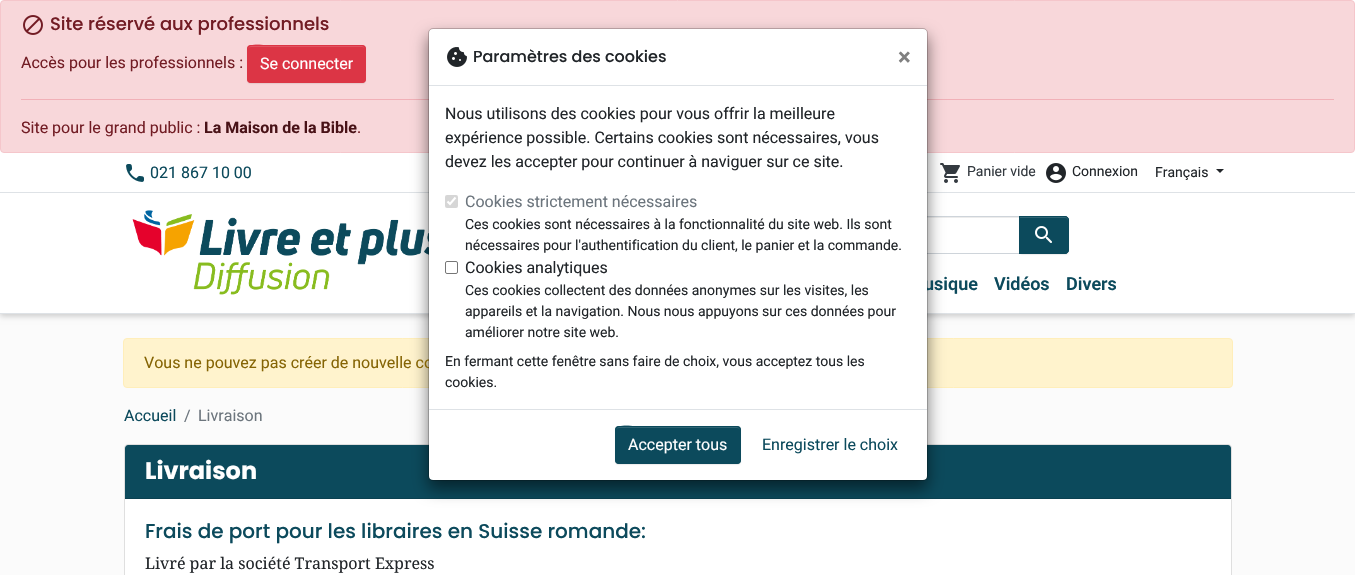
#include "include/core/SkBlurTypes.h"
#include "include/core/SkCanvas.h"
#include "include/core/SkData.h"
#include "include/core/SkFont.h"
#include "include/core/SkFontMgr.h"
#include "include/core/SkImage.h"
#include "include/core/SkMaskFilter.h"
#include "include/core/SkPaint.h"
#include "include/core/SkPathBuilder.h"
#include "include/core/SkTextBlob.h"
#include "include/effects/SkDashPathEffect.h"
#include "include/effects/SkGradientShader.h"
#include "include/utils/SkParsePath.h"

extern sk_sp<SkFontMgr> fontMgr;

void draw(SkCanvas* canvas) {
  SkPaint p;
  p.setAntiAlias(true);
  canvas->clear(SkColorSetRGB(251, 251, 251));
  p.setColor(SkColorSetARGB(51, 0, 0, 0));
  p.setMaskFilter(SkMaskFilter::MakeBlur(kNormal_SkBlurStyle, 3));
  canvas->drawRect(SkRect::MakeLTRB(0, 2, 1355, 316), p);
  p.setMaskFilter(nullptr);
  p.setColor(SK_ColorWHITE);
  canvas->drawRect(SkRect::MakeLTRB(0, 0, 1355, 313), p);
  p.setColor(SkColorSetRGB(248, 215, 218));
  canvas->drawRoundRect(SkRect::MakeLTRB(0.5f, 0.5f, 1354.5f, 152.5f), 3.5f, 3.5f, p);
  p.setStyle(SkPaint::kStroke_Style);
  p.setStrokeWidth(1);
  p.setColor(SkColorSetRGB(245, 198, 203));
  canvas->drawRoundRect(SkRect::MakeLTRB(0.5f, 0.5f, 1354.5f, 152.5f), 3.5f, 3.5f, p);
  canvas->drawImageRect(SkImages::DeferredFromEncodedData(SkData::MakeFromFileName("images/1.png")), SkRect::MakeLTRB(23, 15, 43, 35), SkSamplingOptions());
  p.setStyle(SkPaint::kFill_Style);
  p.setColor(SkColorSetARGB(18, 0, 0, 0));
  p.setMaskFilter(SkMaskFilter::MakeBlur(kNormal_SkBlurStyle, 0.5f));
  canvas->drawRoundRect(SkRect::MakeLTRB(247, 46, 366, 84), 4, 4, p);
  p.setMaskFilter(nullptr);
  p.setColor(SkColorSetRGB(220, 53, 69));
  canvas->drawRoundRect(SkRect::MakeLTRB(247, 45, 366, 83), 4, 4, p);
  p.setColor(SkColorSetRGB(225, 83, 97));
  canvas->drawPath(SkPathBuilder().moveTo(251, 47).lineTo(362, 47).cubicTo(364, 47, 365, 48, 365, 50).cubicTo(365, 48, 364, 46, 362, 46).lineTo(270, 46).cubicTo(268, 46, 248, 41, 248, 50).cubicTo(248, 48, 249, 47, 251, 47).close().detach(), p);
  p.setStyle(SkPaint::kStroke_Style);
  p.setColor(SkColorSetRGB(220, 53, 69));
  canvas->drawRoundRect(SkRect::MakeLTRB(247.5f, 45.5f, 365.5f, 82.5f), 3.5f, 3.5f, p);
  p.setStyle(SkPaint::kFill_Style);
  p.setColor(SkColorSetRGB(241, 176, 183));
  canvas->drawRect(SkRect::MakeLTRB(21, 99, 1334, 100), p);
  p.setColor(SkColorSetRGB(222, 226, 230));
  canvas->drawRect(SkRect::MakeLTRB(0, 313, 1355, 314), p);
  canvas->drawRect(SkRect::MakeLTRB(0, 192, 1355, 193), p);
  canvas->drawImageRect(SkImages::DeferredFromEncodedData(SkData::MakeFromFileName("images/2.png")), SkRect::MakeLTRB(126, 164, 144, 182), SkSamplingOptions());
  canvas->drawImageRect(SkImages::DeferredFromEncodedData(SkData::MakeFromFileName("images/3.png")), SkRect::MakeLTRB(940, 163, 960, 183), SkSamplingOptions());
  canvas->drawImageRect(SkImages::DeferredFromEncodedData(SkData::MakeFromFileName("images/4.png")), SkRect::MakeLTRB(1046, 163, 1066, 183), SkSamplingOptions());
  p.setColor(SkColorSetRGB(33, 37, 41));
  canvas->drawPath(SkPathBuilder().moveTo(1216, 169).lineTo(1224, 169).lineTo(1220, 173).close().detach(), p);
  canvas->drawImageRect(SkImages::DeferredFromEncodedData(SkData::MakeFromFileName("images/5.png")), SkRect::MakeLTRB(132, 210, 429, 295), SkSamplingOptions());
  p.setColor(SkColorSetRGB(236, 236, 236));
  canvas->drawPath(SkPathBuilder().moveTo(623, 218).lineTo(1019, 218).lineTo(1019, 217).lineTo(623, 217).cubicTo(621, 217, 620, 218, 620, 220).lineTo(620, 221).cubicTo(620, 219, 621, 218, 623, 218).close().detach(), p);
  p.setStyle(SkPaint::kStroke_Style);
  p.setColor(SkColorSetRGB(206, 212, 218));
  canvas->drawRect(SkRect::MakeLTRB(619.5f, 216.5f, 1019.5f, 253.5f), p);
  p.setStyle(SkPaint::kFill_Style);
  p.setColor(SkColorSetARGB(18, 0, 0, 0));
  p.setMaskFilter(SkMaskFilter::MakeBlur(kNormal_SkBlurStyle, 0.5f));
  canvas->drawRoundRect(SkRect::MakeLTRB(1019, 217, 1069, 255), 4, 4, p);
  p.setMaskFilter(nullptr);
  p.setColor(SkColorSetRGB(12, 74, 92));
  canvas->drawPath(SkPathBuilder().moveTo(1019, 216).lineTo(1065, 216).cubicTo(1067, 216, 1069, 218, 1069, 220).lineTo(1069, 250).cubicTo(1069, 252, 1067, 254, 1065, 254).lineTo(1019, 254).close().detach(), p);
  p.setColor(SkColorSetRGB(48, 101, 116));
  canvas->drawPath(SkPathBuilder().moveTo(1020, 218).lineTo(1065, 218).cubicTo(1067, 218, 1068, 219, 1068, 221).lineTo(1068, 220).cubicTo(1068, 218, 1067, 217, 1065, 217).lineTo(1020, 217).close().detach(), p);
  p.setStyle(SkPaint::kStroke_Style);
  p.setColor(SkColorSetRGB(12, 74, 92));
  canvas->drawPath(SkPathBuilder().moveTo(1019.5f, 216.5f).lineTo(1065, 216.5f).cubicTo(1067, 216.5f, 1068.5f, 218, 1068.5f, 220).lineTo(1068.5f, 250).cubicTo(1068.5f, 252, 1067, 253.5f, 1065, 253.5f).lineTo(1019.5f, 253.5f).close().detach(), p);
  canvas->drawImageRect(SkImages::DeferredFromEncodedData(SkData::MakeFromFileName("images/6.png")), SkRect::MakeLTRB(1035, 226, 1052, 243), SkSamplingOptions());
  p.setStyle(SkPaint::kFill_Style);
  p.setColor(SkColorSetRGB(255, 243, 205));
  canvas->drawRoundRect(SkRect::MakeLTRB(123.5f, 338.5f, 1232.5f, 387.5f), 3.5f, 3.5f, p);
  p.setStyle(SkPaint::kStroke_Style);
  p.setColor(SkColorSetRGB(255, 238, 186));
  canvas->drawRoundRect(SkRect::MakeLTRB(123.5f, 338.5f, 1232.5f, 387.5f), 3.5f, 3.5f, p);
  p.setStyle(SkPaint::kFill_Style);
  p.setColor(SK_ColorWHITE);
  canvas->drawRoundRect(SkRect::MakeLTRB(124.5f, 444.5f, 1231.5f, 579.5f), 3.5f, 3.5f, p);
  p.setStyle(SkPaint::kStroke_Style);
  p.setColor(SkColorSetRGB(223, 223, 223));
  canvas->drawRoundRect(SkRect::MakeLTRB(124.5f, 444.5f, 1231.5f, 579.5f), 3.5f, 3.5f, p);
  p.setStyle(SkPaint::kFill_Style);
  p.setColor(SkColorSetRGB(12, 74, 92));
  canvas->drawPath(SkPathBuilder().moveTo(128, 445).lineTo(1228, 445).cubicTo(1229.5f, 445, 1231, 446.5f, 1231, 448).lineTo(1231, 499).lineTo(125, 499).lineTo(125, 448).cubicTo(125, 446.5f, 126.5f, 445, 128, 445).close().detach(), p);
  p.setColor(SkColorSetRGB(11, 65, 81));
  canvas->drawRect(SkRect::MakeLTRB(125, 498, 1231, 499), p);
  p.setColor(SkColorSetARGB(128, 0, 0, 0));
  p.setMaskFilter(SkMaskFilter::MakeBlur(kNormal_SkBlurStyle, 8));
  canvas->drawRoundRect(SkRect::MakeLTRB(428, 36, 928, 489), 5, 5, p);
  p.setMaskFilter(nullptr);
  SkFont font1(fontMgr->matchFamilyStyle("Poppins", SkFontStyle(500, SkFontStyle::kNormal_Width, SkFontStyle::kUpright_Slant)), 18);
  font1.setSubpixel(true);
  p.setColor(SkColorSetRGB(114, 28, 36));
  canvas->drawString("Site réservé aux professionnels", 50, 30, font1, p);
  SkFont font2(fontMgr->matchFamilyStyle("Roboto", SkFontStyle::Normal()), 16);
  font2.setSubpixel(true);
  canvas->drawString("Accès pour les professionnels :", 21, 68, font2, p);
  p.setColor(SK_ColorWHITE);
  canvas->drawString("Se connecter", 260, 69, font2, p);
  p.setColor(SkColorSetRGB(114, 28, 36));
  canvas->drawString("Site pour le grand public :", 21, 133, font2, p);
  SkFont font3(fontMgr->matchFamilyStyle("Roboto", SkFontStyle::Bold()), 16);
  font3.setSubpixel(true);
  p.setColor(SkColorSetRGB(73, 18, 23));
  canvas->drawString("La Maison de la Bible", 204, 133, font3, p);
  p.setColor(SkColorSetRGB(114, 28, 36));
  canvas->drawString(".", 357, 133, font2, p);
  p.setColor(SkColorSetRGB(12, 74, 92));
  canvas->drawString("021 867 10 00", 150, 178, font2, p);
  SkFont font4(fontMgr->matchFamilyStyle("Roboto", SkFontStyle::Normal()), 14);
  font4.setSubpixel(true);
  p.setColor(SkColorSetRGB(52, 58, 64));
  canvas->drawString("Panier vide", 967, 176, font4, p);
  p.setColor(SkColorSetRGB(33, 37, 41));
  canvas->drawString("Connexion", 1072, 176, font4, p);
  canvas->drawString("Français", 1155, 177, font4, p);
  SkFont font5(fontMgr->matchFamilyStyle("Roboto", SkFontStyle(600, SkFontStyle::kNormal_Width, SkFontStyle::kUpright_Slant)), 18);
  font5.setSubpixel(true);
  p.setColor(SkColorSetRGB(12, 74, 92));
  canvas->drawString("usique", 924, 290, font5, p);
  canvas->drawString("Vidéos", 994, 290, font5, p);
  canvas->drawString("Divers", 1066, 290, font5, p);
  p.setColor(SkColorSetRGB(133, 100, 4));
  canvas->drawString("Vous ne pouvez pas créer de nouvelle co", 144, 368, font2, p);
  p.setColor(SkColorSetRGB(12, 74, 92));
  canvas->drawString("Accueil", 124, 421, font2, p);
  p.setColor(SkColorSetRGB(108, 117, 125));
  canvas->drawString("/", 184, 421, font2, p);
  canvas->drawString("Livraison", 198, 421, font2, p);
  SkFont font6(fontMgr->matchFamilyStyle("Poppins", SkFontStyle::Bold()), 24);
  font6.setSubpixel(true);
  p.setColor(SK_ColorWHITE);
  canvas->drawString("Livraison", 145, 479, font6, p);
  SkFont font7(fontMgr->matchFamilyStyle("Poppins", SkFontStyle(500, SkFontStyle::kNormal_Width, SkFontStyle::kUpright_Slant)), 20);
  font7.setSubpixel(true);
  p.setColor(SkColorSetRGB(12, 74, 92));
  canvas->drawString("Frais de port pour les libraires en Suisse romande:", 145, 538, font7, p);
  SkFont font8(fontMgr->matchFamilyStyle("Noto Serif", SkFontStyle::Normal()), 16);
  font8.setSubpixel(true);
  p.setColor(SkColorSetRGB(33, 37, 41));
  canvas->drawString("Livré par la société Transport Express", 145, 569, font8, p);
  p.setColor(SK_ColorWHITE);
  canvas->drawRoundRect(SkRect::MakeLTRB(429, 29, 927, 480), 4, 4, p);
  p.setStyle(SkPaint::kStroke_Style);
  p.setColor(SkColorSetARGB(51, 0, 0, 0));
  canvas->drawRoundRect(SkRect::MakeLTRB(428.5f, 28.5f, 927.5f, 480.5f), 4.5f, 4.5f, p);
  p.setStyle(SkPaint::kFill_Style);
  p.setColor(SkColorSetRGB(222, 226, 230));
  canvas->drawRect(SkRect::MakeLTRB(429, 85, 927, 86), p);
  canvas->drawImageRect(SkImages::DeferredFromEncodedData(SkData::MakeFromFileName("images/7.png")), SkRect::MakeLTRB(447, 47, 467, 67), SkSamplingOptions());
  SkFont font9(fontMgr->matchFamilyStyle("Poppins", SkFontStyle(500, SkFontStyle::kNormal_Width, SkFontStyle::kUpright_Slant)), 16);
  font9.setSubpixel(true);
  p.setColor(SkColorSetRGB(33, 37, 41));
  canvas->drawString("Paramètres des cookies", 473, 62, font9, p);
  SkFont font10(fontMgr->matchFamilyStyle("Roboto", SkFontStyle::Bold()), 24);
  font10.setSubpixel(true);
  p.setColor(SkColorSetRGB(128, 128, 128));
  canvas->drawString("×", 898, 65, font10, p);
  p.setColor(SkColorSetRGB(33, 37, 41));
  canvas->drawString("Nous utilisons des cookies pour vous offrir la meilleure", 445, 119, font2, p);
  canvas->drawString("expérience possible. Certains cookies sont nécessaires, vous", 445, 143, font2, p);
  canvas->drawString("devez les accepter pour continuer à naviguer sur ce site.", 445, 167, font2, p);
  p.setColor(SkColorSetRGB(214, 214, 214));
  canvas->drawRoundRect(SkRect::MakeLTRB(445, 195, 458, 208), 2, 2, p);
  p.setStyle(SkPaint::kStroke_Style);
  p.setStrokeWidth(2.1f);
  p.setColor(SK_ColorWHITE);
  canvas->drawPath(SkPathBuilder().moveTo(447.5f, 201.5f).lineTo(450, 204).lineTo(455.5f, 197.5f).detach(), p);
  p.setStyle(SkPaint::kFill_Style);
  p.setColor(SkColorSetRGB(108, 117, 125));
  canvas->drawString("Cookies strictement nécessaires", 465, 207, font2, p);
  p.setColor(SkColorSetRGB(33, 37, 41));
  canvas->drawString("Ces cookies sont nécessaires à la fonctionnalité du site web. Ils sont", 465, 229, font4, p);
  canvas->drawString("nécessaires pour l'authentification du client, le panier et la commande.", 465, 250, font4, p);
  p.setStyle(SkPaint::kStroke_Style);
  p.setStrokeWidth(1);
  p.setColor(SkColorSetRGB(118, 118, 118));
  canvas->drawRoundRect(SkRect::MakeLTRB(445.5f, 261.5f, 457.5f, 273.5f), 1.5f, 1.5f, p);
  p.setStyle(SkPaint::kFill_Style);
  p.setColor(SkColorSetRGB(33, 37, 41));
  canvas->drawString("Cookies analytiques", 465, 273, font2, p);
  canvas->drawString("Ces cookies collectent des données anonymes sur les visites, les", 465, 295, font4, p);
  canvas->drawString("appareils et la navigation. Nous nous appuyons sur ces données pour", 465, 316, font4, p);
  canvas->drawString("améliorer notre site web.", 465, 337, font4, p);
  canvas->drawString("En fermant cette fenêtre sans faire de choix, vous acceptez tous les", 445, 366, font4, p);
  canvas->drawString("cookies.", 445, 387, font4, p);
  p.setColor(SkColorSetRGB(222, 226, 230));
  canvas->drawRect(SkRect::MakeLTRB(429, 409, 927, 410), p);
  p.setColor(SkColorSetARGB(18, 0, 0, 0));
  p.setMaskFilter(SkMaskFilter::MakeBlur(kNormal_SkBlurStyle, 0.5f));
  canvas->drawRoundRect(SkRect::MakeLTRB(615, 427, 741, 465), 4, 4, p);
  p.setMaskFilter(nullptr);
  p.setColor(SkColorSetRGB(12, 74, 92));
  canvas->drawRoundRect(SkRect::MakeLTRB(615, 426, 741, 464), 4, 4, p);
  p.setColor(SkColorSetRGB(48, 101, 116));
  canvas->drawPath(SkPathBuilder().moveTo(619, 428).lineTo(737, 428).cubicTo(739, 428, 740, 429, 740, 431).cubicTo(740, 429, 739, 427, 737, 427).lineTo(639, 427).cubicTo(638, 427, 616, 422, 616, 431).cubicTo(616, 429, 617, 428, 619, 428).close().detach(), p);
  p.setStyle(SkPaint::kStroke_Style);
  p.setColor(SkColorSetRGB(12, 74, 92));
  canvas->drawRoundRect(SkRect::MakeLTRB(615.5f, 426.5f, 740.5f, 463.5f), 3.5f, 3.5f, p);
  p.setStyle(SkPaint::kFill_Style);
  p.setColor(SK_ColorWHITE);
  canvas->drawString("Accepter tous", 628, 450, font2, p);
  p.setColor(SkColorSetRGB(12, 74, 92));
  canvas->drawString("Enregistrer le choix", 762, 450, font2, p);
}
